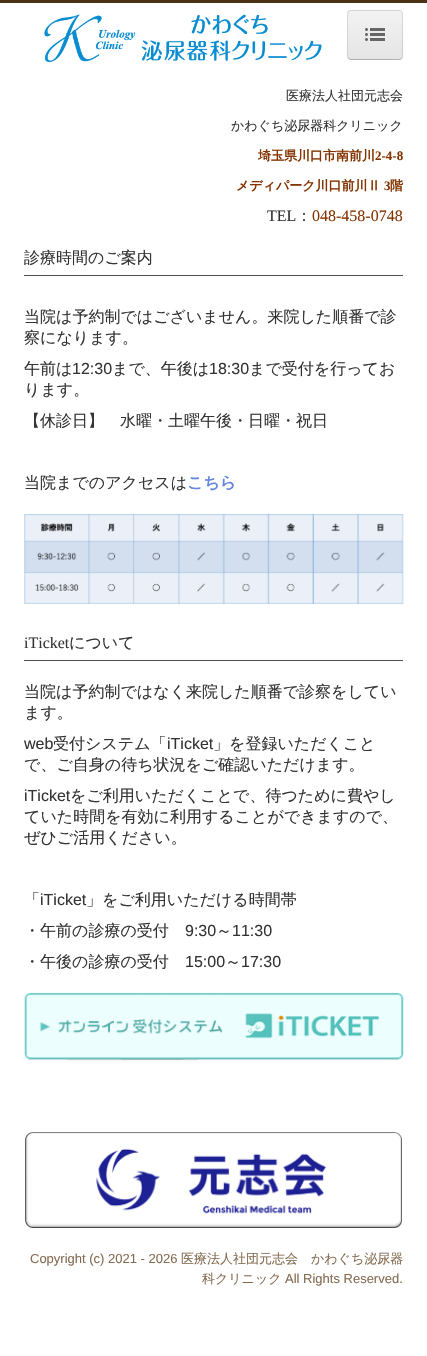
#include "include/core/SkBlurTypes.h"
#include "include/core/SkCanvas.h"
#include "include/core/SkData.h"
#include "include/core/SkFont.h"
#include "include/core/SkFontMgr.h"
#include "include/core/SkImage.h"
#include "include/core/SkMaskFilter.h"
#include "include/core/SkPaint.h"
#include "include/core/SkPathBuilder.h"
#include "include/core/SkTextBlob.h"
#include "include/effects/SkDashPathEffect.h"
#include "include/effects/SkGradientShader.h"
#include "include/utils/SkParsePath.h"

extern sk_sp<SkFontMgr> fontMgr;

void draw(SkCanvas* canvas) {
  SkPaint p;
  p.setAntiAlias(true);
  canvas->clear(SK_ColorWHITE);
  p.setColor(SkColorSetRGB(76, 51, 23));
  canvas->drawRect(SkRect::MakeLTRB(0, 0, 427, 3), p);
  p.setColor(SkColorSetRGB(237, 237, 237));
  canvas->drawRoundRect(SkRect::MakeLTRB(347, 10, 403, 60), 4, 4, p);
  canvas->save();
  canvas->clipPath(SkPathBuilder().moveTo(351, 10).lineTo(399, 10).cubicTo(401, 10, 403, 12, 403, 14).lineTo(403, 56).cubicTo(403, 58, 401, 60, 399, 60).lineTo(351, 60).cubicTo(349, 60, 347, 58, 347, 56).lineTo(347, 14).cubicTo(347, 12, 349, 10, 351, 10).close().detach(), true);
  {
    const SkColor colors[] = {SkColorSetRGB(242, 242, 242), SkColorSetRGB(229, 229, 229)};
    const float stops[] = {0, 1};
    const SkPoint ends[] = {{375, 11}, {375, 59}};
    p.setShader(SkGradientShader::MakeLinear(ends, colors, stops, 2, SkTileMode::kClamp));
    p.setAlpha(255);
  }
  canvas->drawRect(SkRect::MakeLTRB(347, 11, 403, 59), p);
  canvas->restore();
  p.setStyle(SkPaint::kStroke_Style);
  p.setStrokeWidth(1);
  p.setShader(nullptr);
  p.setColor(SkColorSetARGB(64, 0, 0, 0));
  canvas->drawPath(SkPathBuilder().moveTo(401.5f, 58.5f).lineTo(399.5f, 59.5f).lineTo(350.5f, 59.5f).lineTo(348.5f, 58.5f).detach(), p);
  p.setColor(SkColorSetARGB(26, 0, 0, 0));
  canvas->drawPath(SkPathBuilder().moveTo(348.5f, 58.5f).cubicTo(346.5f, 56.5f, 347.5f, 50.5f, 347.5f, 49).lineTo(347.5f, 21).cubicTo(347.5f, 9, 347, 10.5f, 359, 10.5f).lineTo(391, 10.5f).cubicTo(403, 10.5f, 402.5f, 9, 402.5f, 21).lineTo(402.5f, 49).cubicTo(402.5f, 50.5f, 403.5f, 56.5f, 401.5f, 58.5f).detach(), p);
  canvas->drawImageRect(SkImages::DeferredFromEncodedData(SkData::MakeFromFileName("images/1.png")), SkRect::MakeLTRB(365, 28, 385, 41), SkSamplingOptions());
  canvas->drawImageRect(SkImages::DeferredFromEncodedData(SkData::MakeFromFileName("images/2.png")), SkRect::MakeLTRB(44, 14, 322, 63), SkSamplingOptions());
  p.setStyle(SkPaint::kFill_Style);
  p.setColor(SkColorSetRGB(77, 77, 77));
  canvas->drawRect(SkRect::MakeLTRB(24, 275, 403, 276), p);
  canvas->drawImageRect(SkImages::DeferredFromEncodedData(SkData::MakeFromFileName("images/3.png")), SkRect::MakeLTRB(24, 513, 404, 604), SkSamplingOptions());
  canvas->drawRect(SkRect::MakeLTRB(24, 660, 403, 661), p);
  canvas->drawImageRect(SkImages::DeferredFromEncodedData(SkData::MakeFromFileName("images/4.png")), SkRect::MakeLTRB(24, 992, 404, 1061), SkSamplingOptions());
  canvas->drawImageRect(SkImages::DeferredFromEncodedData(SkData::MakeFromFileName("images/5.png")), SkRect::MakeLTRB(25, 1132, 402, 1228), SkSamplingOptions());
  SkFont font1(fontMgr->matchFamilyStyle("WenQuanYi Zen Hei", SkFontStyle(500, SkFontStyle::kNormal_Width, SkFontStyle::kUpright_Slant)), 13);
  font1.setSubpixel(true);
  p.setColor(SkColorSetRGB(51, 51, 51));
  canvas->drawString("医療法人社団元志会", 286, 100, font1, p);
  canvas->drawString("かわぐち泌尿器科クリニック", 231, 130, font1, p);
  SkFont font2(fontMgr->matchFamilyStyle("WenQuanYi Zen Hei", SkFontStyle::Bold()), 13);
  font2.setSubpixel(true);
  p.setColor(SkColorSetRGB(132, 52, 0));
  canvas->drawString("埼玉県川口市南前川", 258, 160, font2, p);
  SkFont font3(fontMgr->matchFamilyStyle("Liberation Serif", SkFontStyle::Bold()), 13);
  font3.setSubpixel(true);
  canvas->drawString("2-4-8", 375, 160, font3, p);
  canvas->drawString("メディパーク川口前川Ⅱ", 236, 190, font2, p);
  canvas->drawString("3", 384, 190, font3, p);
  canvas->drawString("階", 390, 190, font2, p);
  SkFont font4(fontMgr->matchFamilyStyle("Liberation Serif", SkFontStyle::Normal()), 16);
  font4.setSubpixel(true);
  p.setColor(SkColorSetRGB(51, 51, 51));
  canvas->drawString("TEL", 267, 221, font4, p);
  SkFont font5(fontMgr->matchFamilyStyle("WenQuanYi Zen Hei", SkFontStyle(500, SkFontStyle::kNormal_Width, SkFontStyle::kUpright_Slant)), 16);
  font5.setSubpixel(true);
  canvas->drawString("：", 296, 221, font5, p);
  p.setColor(SkColorSetRGB(132, 52, 0));
  canvas->drawString("048-458-0748", 312, 221, font4, p);
  p.setColor(SkColorSetRGB(51, 51, 51));
  canvas->drawString("診療時間のご案内", 24, 263, font5, p);
  canvas->drawString("当院は予約制ではございません。来院した順番で診", 24, 322, font5, p);
  canvas->drawString("察になります。", 24, 343, font5, p);
  canvas->drawString("午前は", 24, 374, font5, p);
  SkFont font6(fontMgr->matchFamilyStyle("Liberation Sans", SkFontStyle::Normal()), 16);
  font6.setSubpixel(true);
  canvas->drawString("12:30", 72, 374, font6, p);
  canvas->drawString("まで、午後は", 112, 374, font5, p);
  canvas->drawString("18:30", 209, 374, font6, p);
  canvas->drawString("まで受付を行ってお", 249, 374, font5, p);
  canvas->drawString("ります。", 24, 395, font5, p);
  canvas->drawString("【休診日】　水曜・土曜午後・日曜・祝日", 24, 426, font5, p);
  canvas->drawString("当院までのアクセスは", 24, 488, font5, p);
  SkFont font7(fontMgr->matchFamilyStyle("WenQuanYi Zen Hei", SkFontStyle::Bold()), 16);
  font7.setSubpixel(true);
  p.setColor(SkColorSetRGB(102, 133, 222));
  canvas->drawString("こちら", 187, 488, font7, p);
  p.setColor(SkColorSetRGB(51, 51, 51));
  canvas->drawString("iTicket", 24, 648, font4, p);
  canvas->drawString("について", 69, 648, font5, p);
  canvas->drawString("当院は予約制ではなく来院した順番で診察をしてい", 24, 697, font5, p);
  canvas->drawString("ます。", 24, 718, font5, p);
  canvas->drawString("web", 24, 749, font6, p);
  canvas->drawString("受付システム「", 53, 749, font5, p);
  canvas->drawString("iTicket", 167, 749, font6, p);
  canvas->drawString("」を登録いただくこと", 213, 749, font5, p);
  canvas->drawString("で、ご自身の待ち状況をご確認いただけます。", 24, 770, font5, p);
  canvas->drawString("iTicket", 24, 801, font6, p);
  canvas->drawString("をご利用いただくことで、待つために費やし", 70, 801, font5, p);
  canvas->drawString("ていた時間を有効に利用することができますので、", 24, 822, font5, p);
  canvas->drawString("ぜひご活用ください。", 24, 843, font5, p);
  canvas->drawString("「", 24, 905, font5, p);
  canvas->drawString("iTicket", 40, 905, font6, p);
  canvas->drawString("」をご利用いただける時間帯", 86, 905, font5, p);
  canvas->drawString("・午前の診療の受付", 24, 936, font5, p);
  canvas->drawString("9:30", 185, 936, font6, p);
  canvas->drawString("～", 216, 936, font5, p);
  canvas->drawString("11:30", 232, 936, font6, p);
  canvas->drawString("・午後の診療の受付", 24, 967, font5, p);
  canvas->drawString("15:00", 185, 967, font6, p);
  canvas->drawString("～", 225, 967, font5, p);
  canvas->drawString("17:30", 241, 967, font6, p);
  SkFont font8(fontMgr->matchFamilyStyle("Liberation Sans", SkFontStyle::Normal()), 13);
  font8.setSubpixel(true);
  p.setColor(SkColorSetRGB(132, 107, 80));
  canvas->drawString("Copyright (c) 2021 - 2026", 30, 1263, font8, p);
  canvas->drawString("医療法人社団元志会　かわぐち泌尿器", 181, 1263, font1, p);
  canvas->drawString("科クリニック", 202, 1283, font1, p);
  canvas->drawString("All Rights Reserved.", 285, 1283, font8, p);
}
